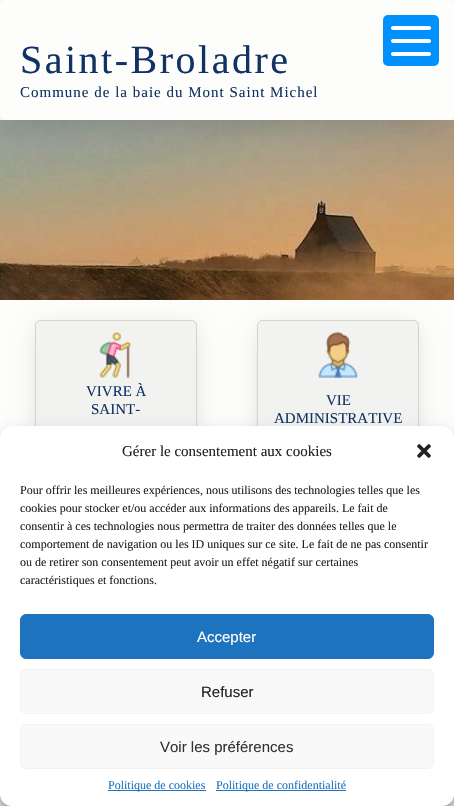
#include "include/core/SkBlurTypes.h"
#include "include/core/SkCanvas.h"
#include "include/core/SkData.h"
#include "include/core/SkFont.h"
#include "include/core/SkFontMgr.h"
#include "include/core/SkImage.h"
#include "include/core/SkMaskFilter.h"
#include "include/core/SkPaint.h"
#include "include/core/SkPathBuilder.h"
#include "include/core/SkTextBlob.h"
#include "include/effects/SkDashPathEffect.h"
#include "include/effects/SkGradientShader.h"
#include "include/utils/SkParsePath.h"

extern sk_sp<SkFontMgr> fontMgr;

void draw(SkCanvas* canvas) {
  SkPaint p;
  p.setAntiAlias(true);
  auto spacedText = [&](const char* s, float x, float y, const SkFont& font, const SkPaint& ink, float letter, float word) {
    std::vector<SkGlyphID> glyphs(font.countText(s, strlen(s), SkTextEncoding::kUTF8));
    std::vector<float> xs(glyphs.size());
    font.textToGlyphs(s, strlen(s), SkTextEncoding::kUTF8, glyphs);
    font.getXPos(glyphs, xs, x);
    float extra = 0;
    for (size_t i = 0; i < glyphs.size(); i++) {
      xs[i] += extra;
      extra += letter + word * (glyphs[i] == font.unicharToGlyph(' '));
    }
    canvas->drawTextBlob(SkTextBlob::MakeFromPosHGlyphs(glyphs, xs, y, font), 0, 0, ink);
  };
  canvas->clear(SkColorSetRGB(251, 249, 242));
  canvas->drawImageRect(SkImages::DeferredFromEncodedData(SkData::MakeFromFileName("images/2.png")), SkRect::MakeLTRB(0, 120, 454, 300), SkSamplingOptions());
  p.setColor(SkColorSetARGB(43, 0, 0, 0));
  p.setMaskFilter(SkMaskFilter::MakeBlur(kNormal_SkBlurStyle, 19));
  canvas->drawRect(SkRect::MakeLTRB(11, 20, 443, 118), p);
  p.setMaskFilter(nullptr);
  p.setColor(SkColorSetRGB(253, 253, 252));
  canvas->drawRoundRect(SkRect::MakeLTRB(0, 0, 454, 120), 5, 5, p);
  p.setColor(SkColorSetRGB(0, 145, 255));
  canvas->drawRoundRect(SkRect::MakeLTRB(383, 15, 439, 66), 5, 5, p);
  canvas->drawImageRect(SkImages::DeferredFromEncodedData(SkData::MakeFromFileName("images/1.png")), SkRect::MakeLTRB(391, 26, 431, 56), SkSamplingOptions());
  p.setColor(SkColorSetRGB(253, 253, 252));
  canvas->drawRect(SkRect::MakeLTRB(0, 300, 454, 438), p);
  p.setColor(SkColorSetARGB(43, 0, 0, 0));
  p.setMaskFilter(SkMaskFilter::MakeBlur(kNormal_SkBlurStyle, 12));
  canvas->drawRect(SkRect::MakeLTRB(41, 330, 191, 480), p);
  p.setMaskFilter(nullptr);
  p.setColor(SkColorSetRGB(242, 242, 240));
  canvas->drawRoundRect(SkRect::MakeLTRB(35.5f, 320.5f, 196.5f, 481.5f), 4.5f, 4.5f, p);
  p.setStyle(SkPaint::kStroke_Style);
  p.setStrokeWidth(1);
  p.setColor(SkColorSetRGB(211, 210, 206));
  canvas->drawRoundRect(SkRect::MakeLTRB(35.5f, 320.5f, 196.5f, 481.5f), 4.5f, 4.5f, p);
  canvas->drawImageRect(SkImages::DeferredFromEncodedData(SkData::MakeFromFileName("images/3.png")), SkRect::MakeLTRB(99, 332, 131, 378), SkSamplingOptions());
  p.setStyle(SkPaint::kFill_Style);
  p.setColor(SkColorSetARGB(43, 0, 0, 0));
  p.setMaskFilter(SkMaskFilter::MakeBlur(kNormal_SkBlurStyle, 12));
  canvas->drawRect(SkRect::MakeLTRB(263, 330, 413, 480), p);
  p.setMaskFilter(nullptr);
  p.setColor(SkColorSetRGB(242, 242, 240));
  canvas->drawRoundRect(SkRect::MakeLTRB(257.5f, 320.5f, 418.5f, 481.5f), 4.5f, 4.5f, p);
  p.setStyle(SkPaint::kStroke_Style);
  p.setColor(SkColorSetRGB(211, 210, 206));
  canvas->drawRoundRect(SkRect::MakeLTRB(257.5f, 320.5f, 418.5f, 481.5f), 4.5f, 4.5f, p);
  canvas->drawImageRect(SkImages::DeferredFromEncodedData(SkData::MakeFromFileName("images/4.png")), SkRect::MakeLTRB(318, 332, 358, 378), SkSamplingOptions());
  p.setStyle(SkPaint::kFill_Style);
  p.setColor(SkColorSetRGB(245, 242, 233));
  canvas->drawRect(SkRect::MakeLTRB(0, 794, 454, 806), p);
  p.setColor(SkColorSetARGB(59, 0, 0, 0));
  p.setMaskFilter(SkMaskFilter::MakeBlur(kNormal_SkBlurStyle, 3));
  canvas->drawRoundRect(SkRect::MakeLTRB(0, 432, 454, 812), 12, 12, p);
  p.setMaskFilter(nullptr);
  p.setColor(SkColorSetARGB(48, 0, 0, 0));
  p.setMaskFilter(SkMaskFilter::MakeBlur(kNormal_SkBlurStyle, 10));
  canvas->drawRoundRect(SkRect::MakeLTRB(0, 436, 454, 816), 12, 12, p);
  p.setMaskFilter(nullptr);
  p.setColor(SK_ColorWHITE);
  canvas->drawRoundRect(SkRect::MakeLTRB(0, 426, 454, 806), 12, 12, p);
  canvas->drawImageRect(SkImages::DeferredFromEncodedData(SkData::MakeFromFileName("images/5.png")), SkRect::MakeLTRB(417, 444, 431, 458), SkSamplingOptions());
  p.setColor(SkColorSetRGB(30, 115, 190));
  canvas->drawRoundRect(SkRect::MakeLTRB(20.5f, 614.5f, 433.5f, 658.5f), 5.5f, 5.5f, p);
  p.setStyle(SkPaint::kStroke_Style);
  canvas->drawRoundRect(SkRect::MakeLTRB(20.5f, 614.5f, 433.5f, 658.5f), 5.5f, 5.5f, p);
  p.setStyle(SkPaint::kFill_Style);
  p.setColor(SkColorSetRGB(249, 249, 249));
  canvas->drawRoundRect(SkRect::MakeLTRB(20.5f, 669.5f, 433.5f, 713.5f), 5.5f, 5.5f, p);
  p.setStyle(SkPaint::kStroke_Style);
  p.setColor(SkColorSetRGB(242, 242, 242));
  canvas->drawRoundRect(SkRect::MakeLTRB(20.5f, 669.5f, 433.5f, 713.5f), 5.5f, 5.5f, p);
  p.setStyle(SkPaint::kFill_Style);
  p.setColor(SkColorSetRGB(249, 249, 249));
  canvas->drawRoundRect(SkRect::MakeLTRB(20.5f, 724.5f, 433.5f, 768.5f), 5.5f, 5.5f, p);
  p.setStyle(SkPaint::kStroke_Style);
  p.setColor(SkColorSetRGB(242, 242, 242));
  canvas->drawRoundRect(SkRect::MakeLTRB(20.5f, 724.5f, 433.5f, 768.5f), 5.5f, 5.5f, p);
  p.setStyle(SkPaint::kFill_Style);
  p.setColor(SkColorSetRGB(30, 115, 190));
  canvas->drawRect(SkRect::MakeLTRB(108, 790, 206, 791), p);
  canvas->drawRect(SkRect::MakeLTRB(216, 790, 346, 791), p);
  SkFont font1(fontMgr->matchFamilyStyle("Liberation Serif", SkFontStyle::Normal()), 40);
  font1.setSubpixel(true);
  p.setColor(SkColorSetRGB(17, 50, 100));
  spacedText("Saint-Broladre", 20, 73, font1, p, 2.5f, 0);
  SkFont font2(fontMgr->matchFamilyStyle("Liberation Serif", SkFontStyle::Normal()), 15);
  font2.setSubpixel(true);
  spacedText("Commune de la baie du Mont Saint Michel", 20, 97, font2, p, 1, 0);
  canvas->drawString("VIVRE À", 86, 396, font2, p);
  canvas->drawString("SAINT-", 91, 414, font2, p);
  canvas->drawString("VIE", 326, 405, font2, p);
  canvas->drawString("ADMINISTRATIVE", 274, 423, font2, p);
  p.setColor(SkColorSetRGB(34, 34, 34));
  canvas->drawString("Gérer le consentement aux cookies", 122, 456, font2, p);
  SkFont font3(fontMgr->matchFamilyStyle("Liberation Serif", SkFontStyle::Normal()), 12);
  font3.setSubpixel(true);
  canvas->drawString("Pour offrir les meilleures expériences, nous utilisons des technologies telles que les", 20, 494, font3, p);
  canvas->drawString("cookies pour stocker et/ou accéder aux informations des appareils. Le fait de", 20, 512, font3, p);
  canvas->drawString("consentir à ces technologies nous permettra de traiter des données telles que le", 20, 530, font3, p);
  canvas->drawString("comportement de navigation ou les ID uniques sur ce site. Le fait de ne pas consentir", 20, 548, font3, p);
  canvas->drawString("ou de retirer son consentement peut avoir un effet négatif sur certaines", 20, 566, font3, p);
  canvas->drawString("caractéristiques et fonctions.", 20, 584, font3, p);
  SkFont font4(fontMgr->matchFamilyStyle("Liberation Sans", SkFontStyle::Normal()), 15);
  font4.setSubpixel(true);
  p.setColor(SK_ColorWHITE);
  canvas->drawString("Accepter", 197, 642, font4, p);
  p.setColor(SkColorSetRGB(34, 34, 34));
  canvas->drawString("Refuser", 201, 697, font4, p);
  p.setColor(SkColorSetRGB(51, 51, 51));
  canvas->drawString("Voir les préférences", 160, 752, font4, p);
  p.setColor(SkColorSetRGB(30, 115, 190));
  canvas->drawString("Politique de cookies", 108, 789, font3, p);
  canvas->drawString("Politique de confidentialité", 216, 789, font3, p);
}
